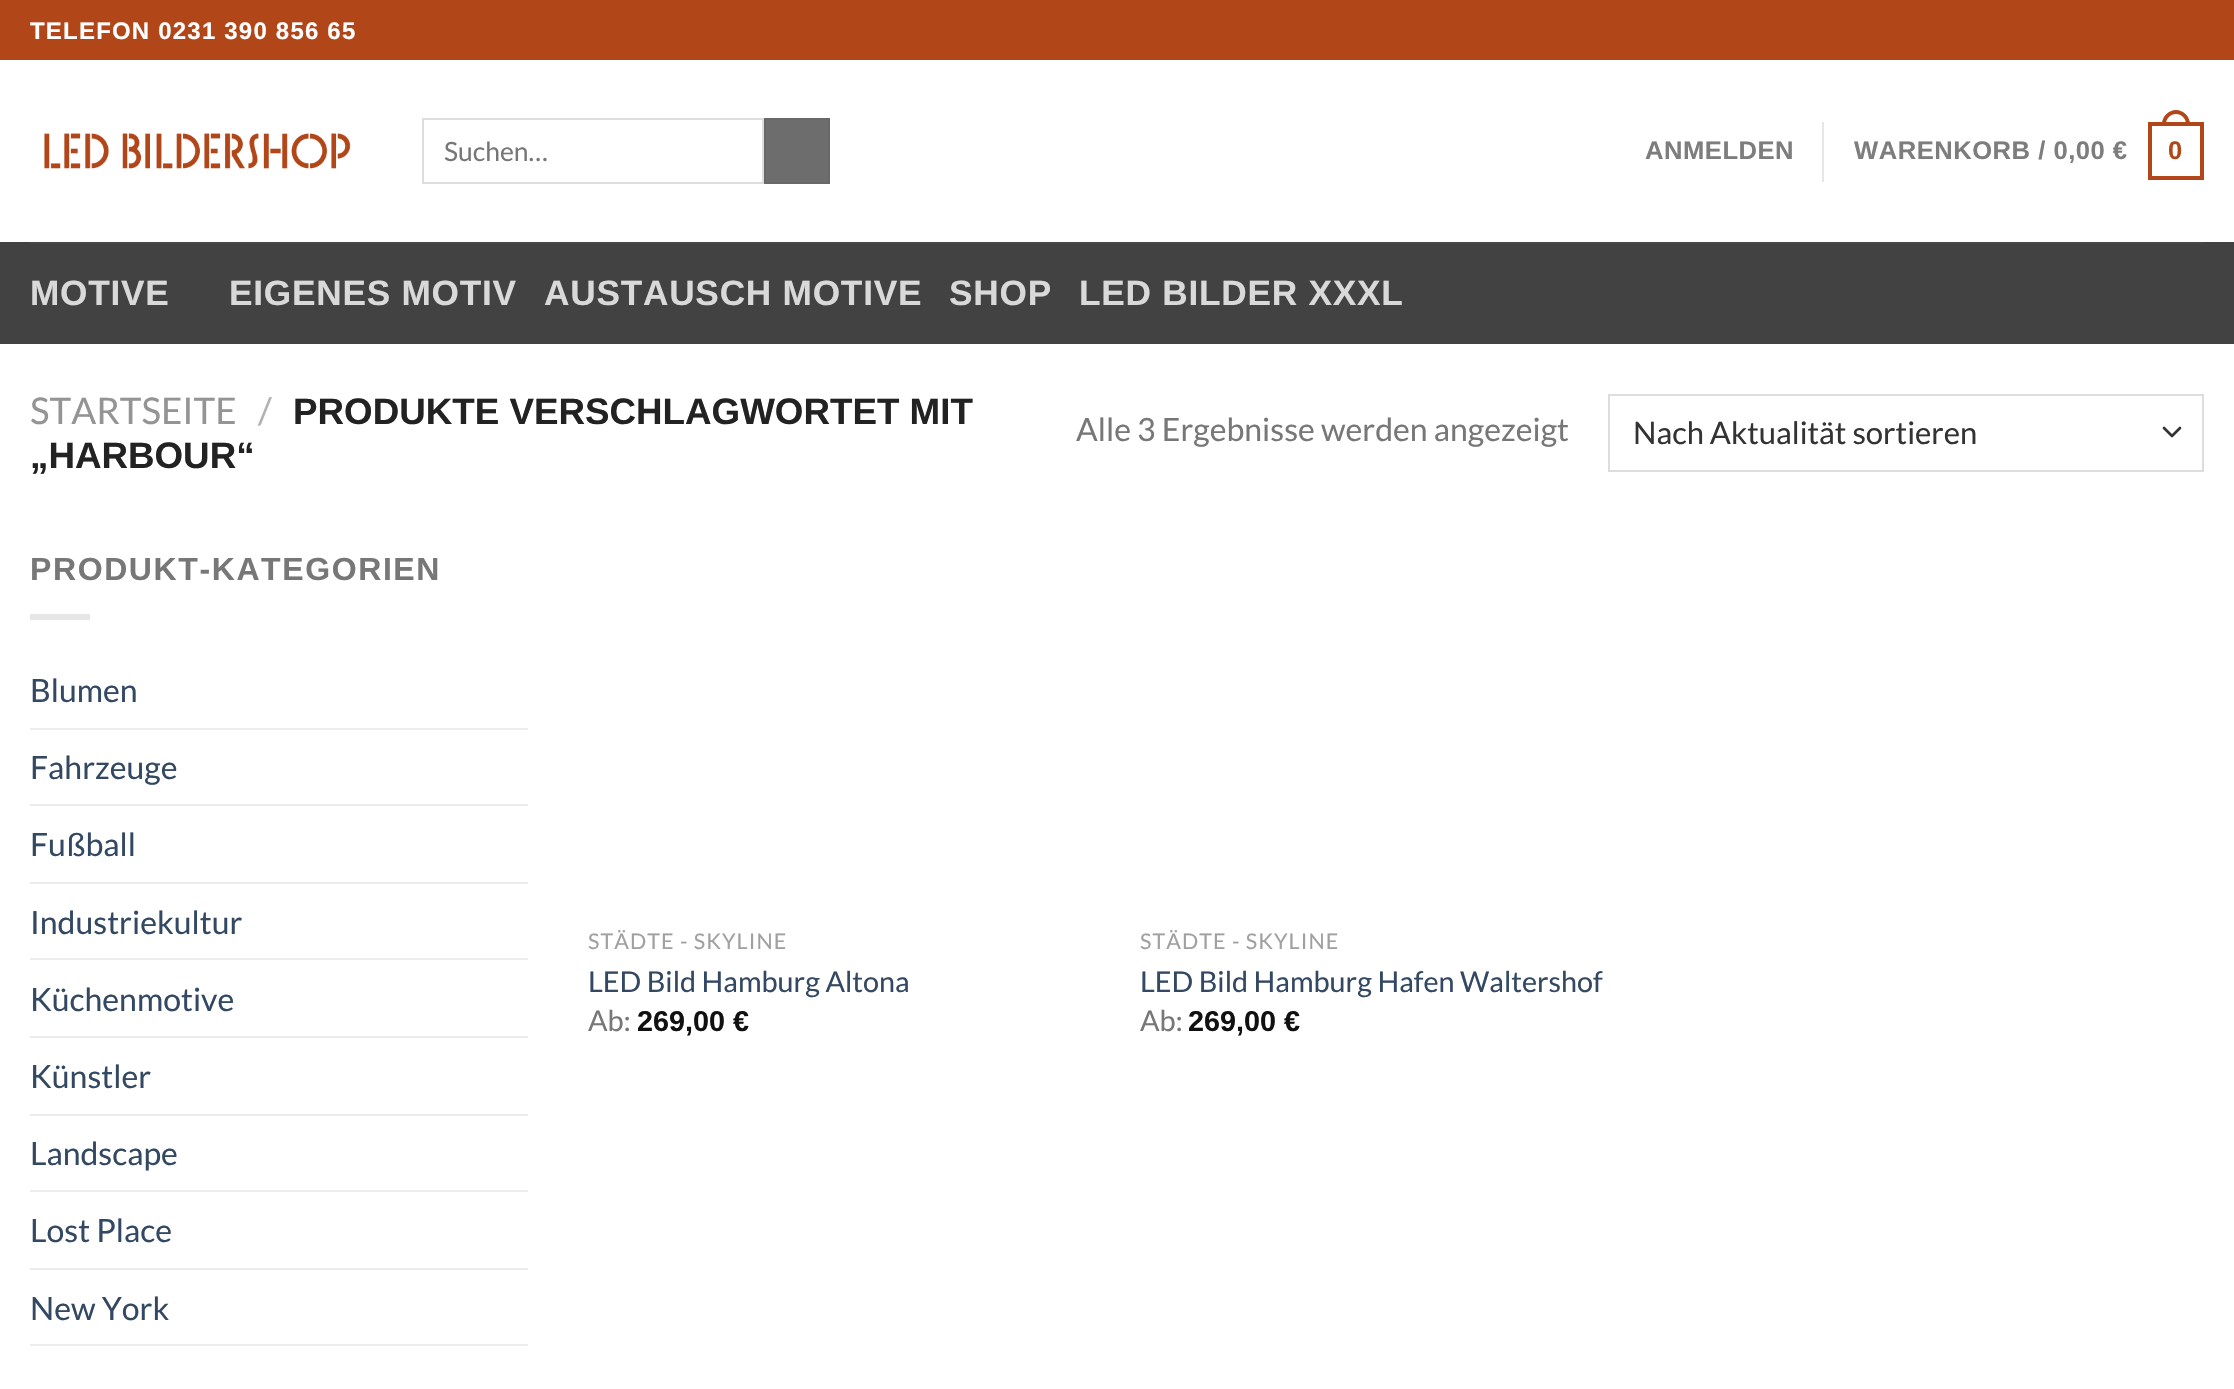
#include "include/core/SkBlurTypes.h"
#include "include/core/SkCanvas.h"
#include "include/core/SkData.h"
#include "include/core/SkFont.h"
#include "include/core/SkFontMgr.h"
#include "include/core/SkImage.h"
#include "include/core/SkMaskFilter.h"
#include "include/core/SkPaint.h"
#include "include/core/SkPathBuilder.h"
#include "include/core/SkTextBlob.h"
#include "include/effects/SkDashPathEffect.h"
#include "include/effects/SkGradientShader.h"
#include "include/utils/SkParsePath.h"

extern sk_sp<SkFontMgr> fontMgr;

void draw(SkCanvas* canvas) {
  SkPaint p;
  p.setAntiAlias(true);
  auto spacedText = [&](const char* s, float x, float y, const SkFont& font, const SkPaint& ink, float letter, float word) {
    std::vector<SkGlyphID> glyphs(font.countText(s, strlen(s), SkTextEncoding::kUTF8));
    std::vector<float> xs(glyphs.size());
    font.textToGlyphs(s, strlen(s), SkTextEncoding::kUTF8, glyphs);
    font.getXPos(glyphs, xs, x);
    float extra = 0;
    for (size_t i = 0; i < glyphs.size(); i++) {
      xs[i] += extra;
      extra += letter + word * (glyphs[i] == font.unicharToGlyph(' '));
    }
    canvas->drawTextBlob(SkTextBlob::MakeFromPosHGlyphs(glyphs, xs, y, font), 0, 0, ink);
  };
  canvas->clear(SK_ColorWHITE);
  p.setColor(SkColorSetRGB(177, 70, 25));
  canvas->drawRect(SkRect::MakeLTRB(0, 0, 2234, 60), p);
  canvas->drawImageRect(SkImages::DeferredFromEncodedData(SkData::MakeFromFileName("images/1.png")), SkRect::MakeLTRB(44, 133, 351, 169), SkSamplingOptions());
  p.setStyle(SkPaint::kStroke_Style);
  p.setStrokeWidth(2);
  p.setColor(SkColorSetRGB(221, 221, 221));
  canvas->drawRect(SkRect::MakeLTRB(423, 119, 763, 183), p);
  p.setStyle(SkPaint::kFill_Style);
  p.setColor(SkColorSetRGB(109, 109, 109));
  canvas->drawRect(SkRect::MakeLTRB(765, 119, 829, 183), p);
  p.setStyle(SkPaint::kStroke_Style);
  p.setColor(SkColorSetRGB(104, 104, 104));
  canvas->drawRect(SkRect::MakeLTRB(765, 119, 829, 183), p);
  p.setStyle(SkPaint::kFill_Style);
  p.setColor(SkColorSetRGB(230, 230, 230));
  canvas->drawRect(SkRect::MakeLTRB(1822, 122, 1824, 182), p);
  p.setStyle(SkPaint::kStroke_Style);
  p.setStrokeWidth(4);
  p.setColor(SkColorSetRGB(177, 70, 25));
  canvas->drawRect(SkRect::MakeLTRB(2150, 124, 2202, 178), p);
  p.setStyle(SkPaint::kFill_Style);
  canvas->drawPath(SkPathBuilder(SkPathFillType::kEvenOdd).moveTo(2176, 110).cubicTo(2183.5f, 110, 2190, 116.5f, 2190, 124).lineTo(2190, 126).lineTo(2162, 126).lineTo(2162, 124).cubicTo(2162, 116.5f, 2168.5f, 110, 2176, 110).close().moveTo(2176, 114).cubicTo(2181.5f, 114, 2186, 118.5f, 2186, 124).lineTo(2186, 126).lineTo(2166, 126).lineTo(2166, 124).cubicTo(2166, 118.5f, 2170.5f, 114, 2176, 114).close().detach(), p);
  p.setColor(SkColorSetRGB(66, 66, 66));
  canvas->drawRect(SkRect::MakeLTRB(0, 242, 2234, 344), p);
  p.setColor(SkColorSetRGB(71, 71, 71));
  canvas->drawRect(SkRect::MakeLTRB(30, 242, 2204, 244), p);
  p.setStyle(SkPaint::kStroke_Style);
  p.setStrokeWidth(2.7f);
  p.setStrokeCap(SkPaint::kRound_Cap);
  p.setStrokeJoin(SkPaint::kRound_Join);
  p.setColor(SkColorSetRGB(51, 51, 51));
  canvas->drawPath(SkPathBuilder().moveTo(2164, 428).lineTo(2172, 436).lineTo(2180, 428).detach(), p);
  p.setStrokeWidth(2);
  p.setStrokeCap(SkPaint::kButt_Cap);
  p.setStrokeJoin(SkPaint::kMiter_Join);
  p.setColor(SkColorSetRGB(221, 221, 221));
  canvas->drawRect(SkRect::MakeLTRB(1609, 395, 2203, 471), p);
  p.setStyle(SkPaint::kFill_Style);
  p.setColor(SkColorSetRGB(230, 230, 230));
  canvas->drawRect(SkRect::MakeLTRB(30, 614, 90, 620), p);
  p.setColor(SkColorSetRGB(236, 236, 236));
  canvas->drawRect(SkRect::MakeLTRB(30, 728, 528, 730), p);
  canvas->drawRect(SkRect::MakeLTRB(30, 804, 528, 806), p);
  canvas->drawRect(SkRect::MakeLTRB(30, 882, 528, 884), p);
  canvas->drawRect(SkRect::MakeLTRB(30, 958, 528, 960), p);
  canvas->drawRect(SkRect::MakeLTRB(30, 1036, 528, 1038), p);
  canvas->drawRect(SkRect::MakeLTRB(30, 1114, 528, 1116), p);
  canvas->drawRect(SkRect::MakeLTRB(30, 1190, 528, 1192), p);
  canvas->drawRect(SkRect::MakeLTRB(30, 1268, 528, 1270), p);
  canvas->drawRect(SkRect::MakeLTRB(30, 1344, 528, 1346), p);
  SkFont font1(fontMgr->matchFamilyStyle("Liberation Sans", SkFontStyle::Bold()), 24);
  font1.setSubpixel(true);
  p.setColor(SK_ColorWHITE);
  spacedText("TELEFON 0231 390 856 65", 30, 39, font1, p, 1.2f, 0);
  SkFont font2(fontMgr->matchFamilyStyle("Lato", SkFontStyle::Normal()), 26.5f);
  font2.setSubpixel(true);
  p.setColor(SkColorSetRGB(119, 119, 119));
  canvas->drawString("Suchen…", 444, 161, font2, p);
  SkFont font3(fontMgr->matchFamilyStyle("Liberation Sans", SkFontStyle::Bold()), 25.6f);
  font3.setSubpixel(true);
  p.setColor(SkColorSetRGB(125, 125, 125));
  spacedText("ANMELDEN", 1645, 159, font3, p, 0.5f, 0);
  spacedText("WARENKORB / 0,00 €", 1854, 159, font3, p, 0.5f, 0);
  p.setColor(SkColorSetRGB(177, 70, 25));
  spacedText("0", 2168, 159, font3, p, 0.5f, 0);
  SkFont font4(fontMgr->matchFamilyStyle("Liberation Sans", SkFontStyle::Bold()), 35.25f);
  font4.setSubpixel(true);
  p.setColor(SkColorSetRGB(217, 217, 217));
  spacedText("MOTIVE", 30, 305, font4, p, 0.75f, 0);
  spacedText("EIGENES MOTIV", 229, 305, font4, p, 0.75f, 0);
  spacedText("AUSTAUSCH MOTIVE", 544, 305, font4, p, 0.75f, 0);
  spacedText("SHOP", 949, 305, font4, p, 0.75f, 0);
  spacedText("LED BILDER XXXL", 1079, 305, font4, p, 0.75f, 0);
  SkFont font5(fontMgr->matchFamilyStyle("Lato", SkFontStyle::Normal()), 36.75f);
  font5.setSubpixel(true);
  p.setColor(SkColorSetRGB(148, 148, 148));
  canvas->drawString("STARTSEITE", 30, 424, font5, p);
  p.setColor(SkColorSetRGB(178, 178, 178));
  canvas->drawString("/", 258, 424, font5, p);
  SkFont font6(fontMgr->matchFamilyStyle("Liberation Sans", SkFontStyle::Bold()), 36.75f);
  font6.setSubpixel(true);
  p.setColor(SkColorSetRGB(34, 34, 34));
  canvas->drawString("PRODUKTE VERSCHLAGWORTET MIT", 293, 424, font6, p);
  canvas->drawString("„HARBOUR“", 30, 468, font6, p);
  SkFont font7(fontMgr->matchFamilyStyle("Lato", SkFontStyle::Normal()), 32);
  font7.setSubpixel(true);
  p.setColor(SkColorSetRGB(119, 119, 119));
  canvas->drawString("Alle 3 Ergebnisse werden angezeigt", 1076, 441, font7, p);
  SkFont font8(fontMgr->matchFamilyStyle("Lato", SkFontStyle::Normal()), 31);
  font8.setSubpixel(true);
  p.setColor(SkColorSetRGB(51, 51, 51));
  canvas->drawString("Nach Aktualität sortieren", 1633, 444, font8, p);
  SkFont font9(fontMgr->matchFamilyStyle("Liberation Sans", SkFontStyle::Bold()), 32);
  font9.setSubpixel(true);
  p.setColor(SkColorSetRGB(119, 119, 119));
  spacedText("PRODUKT-KATEGORIEN", 30, 580, font9, p, 1.6f, 0);
  p.setColor(SkColorSetRGB(51, 72, 98));
  canvas->drawString("Blumen", 30, 702, font7, p);
  canvas->drawString("Fahrzeuge", 30, 779, font7, p);
  canvas->drawString("Fußball", 30, 856, font7, p);
  canvas->drawString("Industriekultur", 30, 934, font7, p);
  canvas->drawString("Küchenmotive", 30, 1011, font7, p);
  canvas->drawString("Künstler", 30, 1088, font7, p);
  canvas->drawString("Landscape", 30, 1165, font7, p);
  canvas->drawString("Lost Place", 30, 1242, font7, p);
  canvas->drawString("New York", 30, 1320, font7, p);
  SkFont font10(fontMgr->matchFamilyStyle("Lato", SkFontStyle::Normal()), 21.5f);
  font10.setSubpixel(true);
  p.setColor(SkColorSetRGB(160, 160, 160));
  spacedText("STÄDTE - SKYLINE", 588, 949, font10, p, 1.1f, 0);
  SkFont font11(fontMgr->matchFamilyStyle("Lato", SkFontStyle::Normal()), 28.75f);
  font11.setSubpixel(true);
  p.setColor(SkColorSetRGB(51, 72, 98));
  canvas->drawString("LED Bild Hamburg Altona", 588, 992, font11, p);
  p.setColor(SkColorSetRGB(119, 119, 119));
  canvas->drawString("Ab:", 588, 1031, font11, p);
  SkFont font12(fontMgr->matchFamilyStyle("Liberation Sans", SkFontStyle::Bold()), 28.75f);
  font12.setSubpixel(true);
  p.setColor(SkColorSetRGB(17, 17, 17));
  canvas->drawString("269,00 €", 637, 1031, font12, p);
  canvas->save();
  canvas->clipRect(SkRect::MakeLTRB(1140, 930, 1652, 956));
  p.setColor(SkColorSetRGB(160, 160, 160));
  spacedText("STÄDTE - SKYLINE", 1140, 949, font10, p, 1.1f, 0);
  canvas->restore();
  p.setColor(SkColorSetRGB(51, 72, 98));
  canvas->drawString("LED Bild Hamburg Hafen Waltershof", 1140, 992, font11, p);
  p.setColor(SkColorSetRGB(119, 119, 119));
  canvas->drawString("Ab:", 1140, 1031, font11, p);
  p.setColor(SkColorSetRGB(17, 17, 17));
  canvas->drawString("269,00 €", 1188, 1031, font12, p);
}
